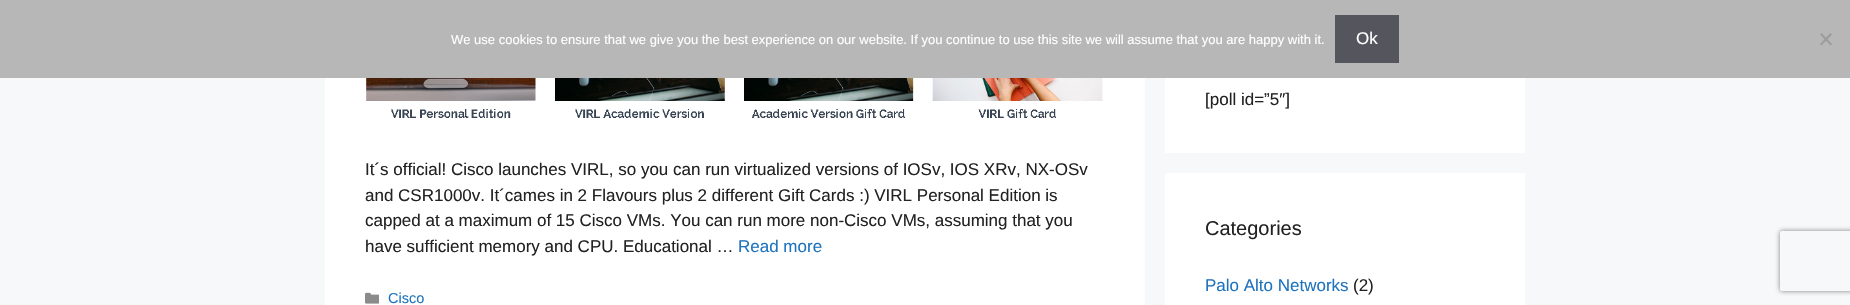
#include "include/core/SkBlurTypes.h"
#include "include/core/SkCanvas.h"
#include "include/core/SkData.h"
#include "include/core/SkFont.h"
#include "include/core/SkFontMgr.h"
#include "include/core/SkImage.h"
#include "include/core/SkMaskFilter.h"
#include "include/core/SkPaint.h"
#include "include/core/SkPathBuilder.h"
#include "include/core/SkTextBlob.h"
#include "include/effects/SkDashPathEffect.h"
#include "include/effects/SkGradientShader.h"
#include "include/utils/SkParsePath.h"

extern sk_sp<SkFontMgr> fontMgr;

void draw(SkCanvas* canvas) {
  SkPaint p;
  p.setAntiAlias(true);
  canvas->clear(SkColorSetRGB(247, 248, 249));
  p.setColor(SkColorSetRGB(183, 183, 183));
  canvas->drawRect(SkRect::MakeLTRB(0, 0, 1850, 78), p);
  p.setColor(SkColorSetRGB(85, 85, 94));
  canvas->drawRect(SkRect::MakeLTRB(1335, 15, 1399, 63), p);
  p.setColor(SkColorSetRGB(156, 156, 156));
  canvas->drawPath(SkPathBuilder().moveTo(1830.5f, 33).lineTo(1832, 34.5f).lineTo(1821.5f, 45.5f).lineTo(1820, 44).close().detach(), p);
  canvas->drawPath(SkPathBuilder().moveTo(1820, 34.5f).lineTo(1821.5f, 33).lineTo(1832, 44).lineTo(1830.5f, 45.5f).close().detach(), p);
  p.setColor(SK_ColorWHITE);
  canvas->drawRect(SkRect::MakeLTRB(325, 78, 1145, 305), p);
  canvas->drawImageRect(SkImages::DeferredFromEncodedData(SkData::MakeFromFileName("images/1.png")), SkRect::MakeLTRB(366, 78, 1103, 118), SkSamplingOptions());
  canvas->drawImageRect(SkImages::DeferredFromEncodedData(SkData::MakeFromFileName("images/2.png")), SkRect::MakeLTRB(365, 292, 379, 304), SkSamplingOptions());
  canvas->drawRect(SkRect::MakeLTRB(1165, 78, 1525, 153), p);
  canvas->drawRect(SkRect::MakeLTRB(1165, 173, 1525, 305), p);
  canvas->save();
  canvas->clipPath(SkPathBuilder(SkPathFillType::kEvenOdd).moveTo(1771, 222).lineTo(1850, 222).lineTo(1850, 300).lineTo(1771, 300).close().moveTo(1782, 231).lineTo(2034, 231).cubicTo(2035, 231, 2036, 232, 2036, 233).lineTo(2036, 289).cubicTo(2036, 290, 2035, 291, 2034, 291).lineTo(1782, 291).cubicTo(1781, 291, 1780, 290, 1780, 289).lineTo(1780, 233).cubicTo(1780, 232, 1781, 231, 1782, 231).close().detach(), true);
  p.setColor(SkColorSetRGB(128, 128, 128));
  p.setMaskFilter(SkMaskFilter::MakeBlur(kNormal_SkBlurStyle, 2.5f));
  canvas->drawRoundRect(SkRect::MakeLTRB(1780, 231, 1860, 291), 2, 2, p);
  p.setMaskFilter(nullptr);
  canvas->restore();
  SkFont font1(fontMgr->matchFamilyStyle("Liberation Sans", SkFontStyle::Normal()), 13);
  font1.setSubpixel(true);
  p.setColor(SK_ColorWHITE);
  canvas->drawString("We use cookies to ensure that we give you the best experience on our website. If you continue to use this site we will assume that you are happy with it.", 451, 44, font1, p);
  SkFont font2(fontMgr->matchFamilyStyle("Liberation Sans", SkFontStyle::Normal()), 17);
  font2.setSubpixel(true);
  canvas->drawString("Ok", 1356, 44, font2, p);
  p.setColor(SkColorSetRGB(34, 34, 34));
  canvas->drawString("It´s official! Cisco launches VIRL, so you can run virtualized versions of IOSv, IOS XRv, NX-OSv", 365, 175, font2, p);
  canvas->drawString("and CSR1000v. It´cames in 2 Flavours plus 2 different Gift Cards :) VIRL Personal Edition is", 365, 201, font2, p);
  canvas->drawString("capped at a maximum of 15 Cisco VMs. You can run more non-Cisco VMs, assuming that you", 365, 226, font2, p);
  canvas->drawString("have sufficient memory and CPU. Educational …", 365, 252, font2, p);
  p.setColor(SkColorSetRGB(30, 115, 190));
  canvas->drawString("Read more", 738, 252, font2, p);
  SkFont font3(fontMgr->matchFamilyStyle("Liberation Sans", SkFontStyle::Normal()), 14.5f);
  font3.setSubpixel(true);
  canvas->drawString("Cisco", 388, 303, font3, p);
  p.setColor(SkColorSetRGB(34, 34, 34));
  canvas->drawString("[poll id=”5″]", 1205, 105, font2, p);
  SkFont font4(fontMgr->matchFamilyStyle("Liberation Sans", SkFontStyle::Normal()), 20);
  font4.setSubpixel(true);
  canvas->drawString("Categories", 1205, 235, font4, p);
  p.setColor(SkColorSetRGB(30, 115, 190));
  canvas->drawString("Palo Alto Networks", 1205, 291, font2, p);
  p.setColor(SkColorSetRGB(34, 34, 34));
  canvas->drawString("(2)", 1353, 291, font2, p);
}
